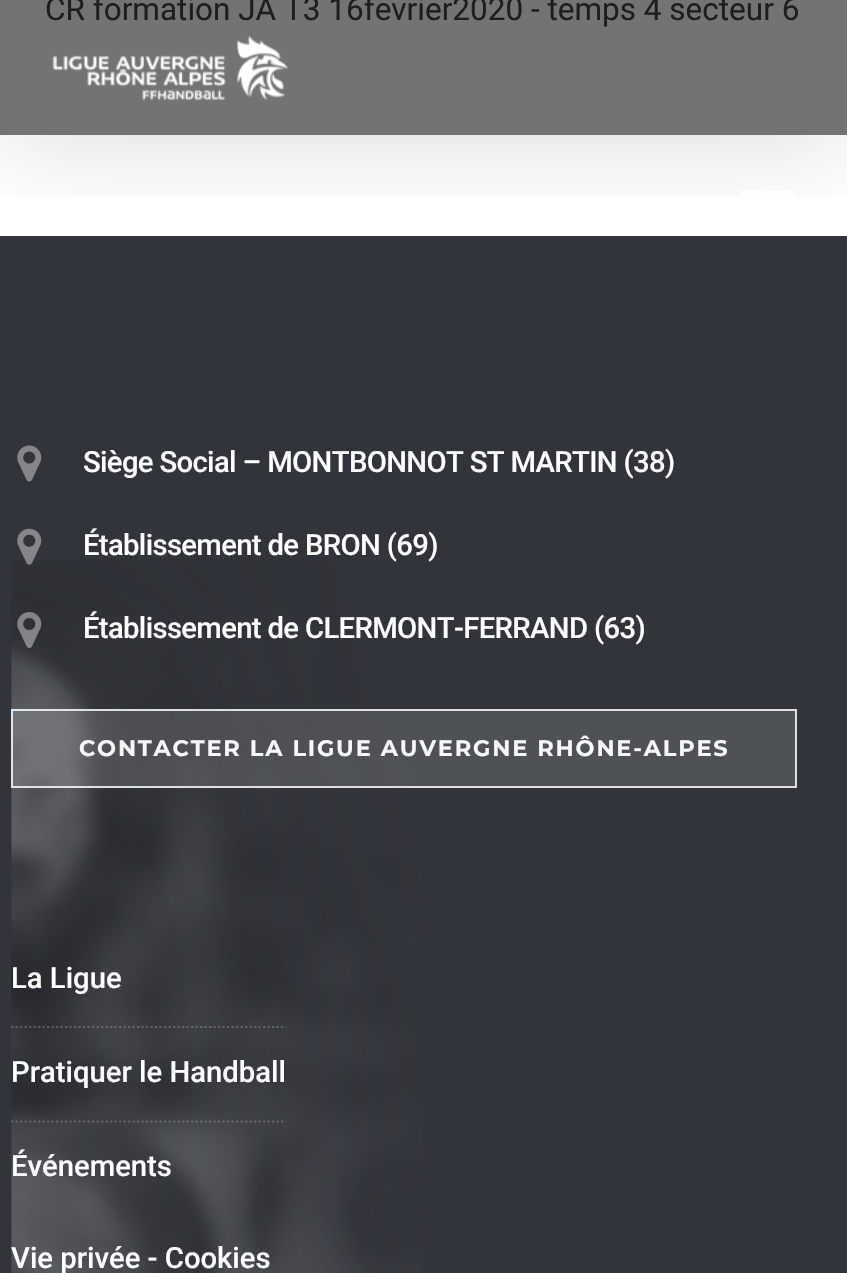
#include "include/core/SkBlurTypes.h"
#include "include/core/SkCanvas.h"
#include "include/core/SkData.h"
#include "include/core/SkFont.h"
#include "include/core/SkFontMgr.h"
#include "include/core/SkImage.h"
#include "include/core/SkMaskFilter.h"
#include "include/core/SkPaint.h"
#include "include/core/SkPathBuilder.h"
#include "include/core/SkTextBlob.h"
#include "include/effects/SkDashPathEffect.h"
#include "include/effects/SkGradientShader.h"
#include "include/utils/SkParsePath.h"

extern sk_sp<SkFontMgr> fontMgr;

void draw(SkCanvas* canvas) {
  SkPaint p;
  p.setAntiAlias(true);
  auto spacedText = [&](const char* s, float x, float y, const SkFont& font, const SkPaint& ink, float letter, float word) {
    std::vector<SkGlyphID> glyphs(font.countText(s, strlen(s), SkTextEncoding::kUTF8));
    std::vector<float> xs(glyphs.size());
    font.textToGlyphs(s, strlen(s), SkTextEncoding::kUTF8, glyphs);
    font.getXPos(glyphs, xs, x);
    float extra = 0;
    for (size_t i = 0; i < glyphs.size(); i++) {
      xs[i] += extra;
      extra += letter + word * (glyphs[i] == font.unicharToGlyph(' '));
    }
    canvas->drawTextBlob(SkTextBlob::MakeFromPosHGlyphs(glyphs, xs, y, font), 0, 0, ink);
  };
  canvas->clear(SK_ColorWHITE);
  p.setColor(SkColorSetRGB(115, 115, 115));
  canvas->drawRect(SkRect::MakeLTRB(0, 0, 847, 135), p);
  p.setColor(SkColorSetRGB(49, 52, 58));
  canvas->drawRect(SkRect::MakeLTRB(0, 236, 847, 1273), p);
  canvas->save();
  canvas->clipRect(SkRect::MakeLTRB(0, 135, 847, 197));
  p.setColor(SkColorSetARGB(38, 0, 0, 0));
  p.setMaskFilter(SkMaskFilter::MakeBlur(kNormal_SkBlurStyle, 56));
  canvas->drawRect(SkRect::MakeLTRB(0, 0, 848, 135), p);
  p.setMaskFilter(nullptr);
  canvas->restore();
  canvas->drawImageRect(SkImages::DeferredFromEncodedData(SkData::MakeFromFileName("images/1.png")), SkRect::MakeLTRB(52, 36, 288, 101), SkSamplingOptions());
  p.setColor(SK_ColorWHITE);
  canvas->drawRect(SkRect::MakeLTRB(740, 191, 794, 196), p);
  canvas->drawRect(SkRect::MakeLTRB(749, 203, 794, 208), p);
  canvas->drawRect(SkRect::MakeLTRB(740, 214, 794, 218), p);
  canvas->drawImageRect(SkImages::DeferredFromEncodedData(SkData::MakeFromFileName("images/2.png")), SkRect::MakeLTRB(17, 445, 42, 482), SkSamplingOptions());
  canvas->drawImageRect(SkImages::DeferredFromEncodedData(SkData::MakeFromFileName("images/5.png")), SkRect::MakeLTRB(11, 559, 423, 1273), SkSamplingOptions());
  canvas->drawImageRect(SkImages::DeferredFromEncodedData(SkData::MakeFromFileName("images/3.png")), SkRect::MakeLTRB(17, 528, 42, 565), SkSamplingOptions());
  canvas->drawImageRect(SkImages::DeferredFromEncodedData(SkData::MakeFromFileName("images/4.png")), SkRect::MakeLTRB(17, 612, 42, 648), SkSamplingOptions());
  p.setColor(SkColorSetARGB(36, 255, 255, 255));
  canvas->drawRect(SkRect::MakeLTRB(11, 709, 797, 788), p);
  p.setColor(SkColorSetRGB(61, 130, 191));
  canvas->drawCircle(13.5f, 711, 2.2f, p);
  p.setStyle(SkPaint::kStroke_Style);
  p.setStrokeWidth(2);
  p.setColor(SkColorSetARGB(207, 255, 255, 255));
  canvas->drawRect(SkRect::MakeLTRB(12, 710, 796, 787), p);
  p.setStrokeWidth(2.2f);
  p.setColor(SkColorSetARGB(51, 255, 255, 255));
  p.setPathEffect(SkDashPathEffect::Make({{2.25f, 2.25f}}, 0));
  canvas->drawPath(SkPathBuilder().moveTo(11, 1027).lineTo(286, 1027).detach(), p);
  p.setPathEffect(nullptr);
  p.setPathEffect(SkDashPathEffect::Make({{2.25f, 2.25f}}, 0));
  canvas->drawPath(SkPathBuilder().moveTo(11, 1121.5f).lineTo(286, 1121.5f).detach(), p);
  p.setPathEffect(nullptr);
  SkFont font1(fontMgr->matchFamilyStyle("Roboto", SkFontStyle::Normal()), 31.5f);
  font1.setSubpixel(true);
  p.setStyle(SkPaint::kFill_Style);
  p.setColor(SkColorSetRGB(30, 30, 30));
  canvas->drawString("CR formation JA T3 16fevrier2020 - temps 4 secteur 6", 45, 20, font1, p);
  SkFont font2(fontMgr->matchFamilyStyle("Roboto", SkFontStyle(500, SkFontStyle::kNormal_Width, SkFontStyle::kUpright_Slant)), 29.25f);
  font2.setSubpixel(true);
  p.setColor(SK_ColorWHITE);
  spacedText("Siège Social – MONTBONNOT ST MARTIN (38)", 83, 472, font2, p, -0.65f, 0);
  spacedText("Établissement de BRON (69)", 83, 555, font2, p, -0.65f, 0);
  spacedText("Établissement de CLERMONT-FERRAND (63)", 83, 638, font2, p, -0.65f, 0);
  SkFont font3(fontMgr->matchFamilyStyle("Montserrat", SkFontStyle::Bold()), 22.5f);
  font3.setSubpixel(true);
  p.setColor(SkColorSetRGB(247, 247, 247));
  spacedText("CONTACTER LA LIGUE AUVERGNE RHÔNE-ALPES", 79, 756, font3, p, 1.8f, 0);
  p.setColor(SK_ColorWHITE);
  canvas->drawString("La Ligue", 11, 988, font2, p);
  canvas->drawString("Pratiquer le Handball", 11, 1082, font2, p);
  canvas->drawString("Événements", 11, 1176, font2, p);
  canvas->drawString("Vie privée - Cookies", 11, 1268, font2, p);
}
